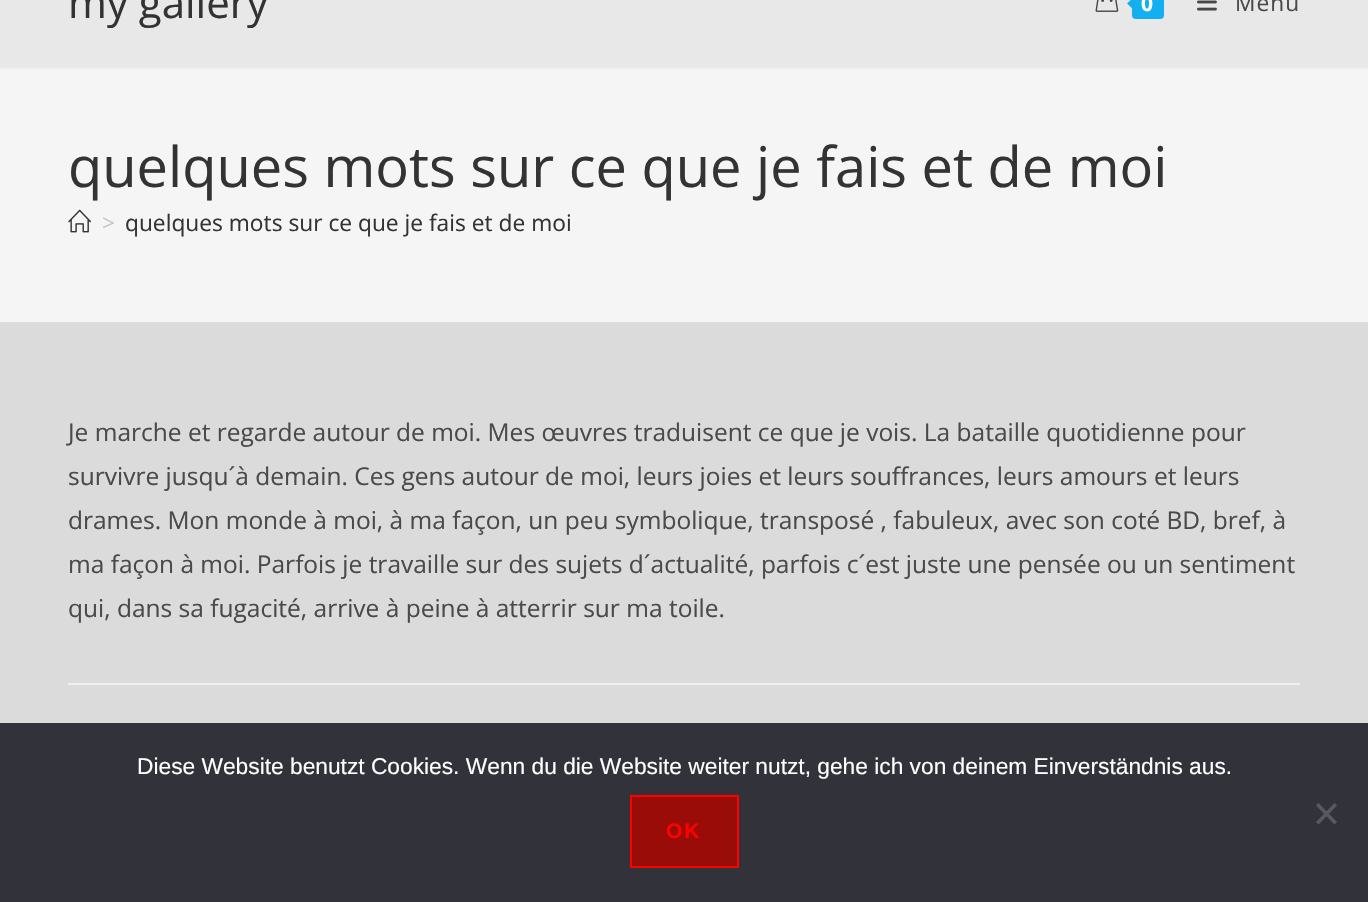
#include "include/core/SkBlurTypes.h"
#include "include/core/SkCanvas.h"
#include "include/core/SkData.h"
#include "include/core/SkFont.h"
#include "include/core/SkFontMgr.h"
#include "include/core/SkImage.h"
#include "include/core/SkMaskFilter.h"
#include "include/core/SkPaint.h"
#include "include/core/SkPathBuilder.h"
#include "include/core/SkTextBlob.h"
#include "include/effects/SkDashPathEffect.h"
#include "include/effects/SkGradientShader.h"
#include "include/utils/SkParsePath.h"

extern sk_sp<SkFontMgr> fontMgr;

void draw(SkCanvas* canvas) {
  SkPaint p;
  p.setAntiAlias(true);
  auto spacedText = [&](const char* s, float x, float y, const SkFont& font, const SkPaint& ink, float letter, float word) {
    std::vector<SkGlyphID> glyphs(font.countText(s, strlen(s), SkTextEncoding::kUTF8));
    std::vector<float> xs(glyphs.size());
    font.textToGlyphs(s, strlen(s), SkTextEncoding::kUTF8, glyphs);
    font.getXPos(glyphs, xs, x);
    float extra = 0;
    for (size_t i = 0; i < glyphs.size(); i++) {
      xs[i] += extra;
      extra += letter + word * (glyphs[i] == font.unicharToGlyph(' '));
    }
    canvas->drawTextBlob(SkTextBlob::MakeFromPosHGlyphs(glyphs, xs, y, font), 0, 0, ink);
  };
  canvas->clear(SkColorSetRGB(219, 219, 219));
  p.setColor(SkColorSetRGB(232, 232, 232));
  canvas->drawRect(SkRect::MakeLTRB(0, 0, 1368, 67), p);
  p.setColor(SkColorSetRGB(237, 237, 237));
  canvas->drawRect(SkRect::MakeLTRB(0, 67, 1368, 69), p);
  canvas->drawImageRect(SkImages::DeferredFromEncodedData(SkData::MakeFromFileName("images/1.png")), SkRect::MakeLTRB(1095, 0, 1119, 12), SkSamplingOptions());
  p.setColor(SkColorSetRGB(19, 175, 240));
  canvas->drawRoundRect(SkRect::MakeLTRB(1132, -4, 1164, 19), 4, 4, p);
  canvas->drawPath(SkPathBuilder().moveTo(1136, -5).lineTo(1136, 12).lineTo(1127, 3.5f).close().detach(), p);
  canvas->drawImageRect(SkImages::DeferredFromEncodedData(SkData::MakeFromFileName("images/2.png")), SkRect::MakeLTRB(1197, 0, 1217, 11), SkSamplingOptions());
  p.setColor(SkColorSetRGB(245, 245, 245));
  canvas->drawRect(SkRect::MakeLTRB(0, 69, 1368, 322), p);
  canvas->drawImageRect(SkImages::DeferredFromEncodedData(SkData::MakeFromFileName("images/3.png")), SkRect::MakeLTRB(68, 209, 91, 233), SkSamplingOptions());
  p.setColor(SkColorSetRGB(241, 241, 241));
  canvas->drawRect(SkRect::MakeLTRB(68, 683, 1300, 685), p);
  p.setColor(SkColorSetRGB(50, 50, 58));
  canvas->drawRect(SkRect::MakeLTRB(0, 723, 1368, 902), p);
  p.setColor(SkColorSetRGB(89, 89, 93));
  canvas->drawPath(SkPathBuilder().moveTo(1334.5f, 803).lineTo(1337, 805.5f).lineTo(1318.5f, 824.5f).lineTo(1316, 822).close().detach(), p);
  canvas->drawPath(SkPathBuilder().moveTo(1316, 805.5f).lineTo(1318.5f, 803).lineTo(1337, 822).lineTo(1334.5f, 824.5f).close().detach(), p);
  p.setColor(SkColorSetRGB(153, 12, 7));
  canvas->drawRect(SkRect::MakeLTRB(631, 796, 738, 867), p);
  p.setStyle(SkPaint::kStroke_Style);
  p.setStrokeWidth(2);
  p.setColor(SkColorSetRGB(255, 0, 0));
  canvas->drawRect(SkRect::MakeLTRB(631, 796, 738, 867), p);
  SkFont font1(fontMgr->matchFamilyStyle("Open Sans", SkFontStyle::Normal()), 42);
  font1.setSubpixel(true);
  p.setStyle(SkPaint::kFill_Style);
  p.setColor(SkColorSetRGB(51, 51, 51));
  canvas->drawString("my gallery", 68, 18, font1, p);
  SkFont font2(fontMgr->matchFamilyStyle("Open Sans", SkFontStyle::Bold()), 21);
  font2.setSubpixel(true);
  p.setColor(SK_ColorWHITE);
  spacedText("0", 1141, 11, font2, p, 1, 0);
  SkFont font3(fontMgr->matchFamilyStyle("Open Sans", SkFontStyle::Normal()), 22.75f);
  font3.setSubpixel(true);
  p.setColor(SkColorSetRGB(74, 74, 74));
  spacedText("Menü", 1235, 11, font3, p, 1, 0);
  SkFont font4(fontMgr->matchFamilyStyle("Open Sans", SkFontStyle::Normal()), 56);
  font4.setSubpixel(true);
  p.setColor(SkColorSetRGB(51, 51, 51));
  canvas->drawString("quelques mots sur ce que je fais et de moi", 68, 187, font4, p);
  p.setColor(SkColorSetRGB(198, 198, 198));
  canvas->drawString(">", 102, 231, font3, p);
  p.setColor(SkColorSetRGB(51, 51, 51));
  canvas->drawString("quelques mots sur ce que je fais et de moi", 125, 231, font3, p);
  SkFont font5(fontMgr->matchFamilyStyle("Open Sans", SkFontStyle::Normal()), 24.5f);
  font5.setSubpixel(true);
  p.setColor(SkColorSetRGB(74, 74, 74));
  canvas->drawString("Je marche et regarde autour de moi. Mes œuvres traduisent ce que je vois. La bataille quotidienne pour", 68, 441, font5, p);
  canvas->drawString("survivre jusqu´à demain. Ces gens autour de moi, leurs joies et leurs souffrances, leurs amours et leurs", 68, 485, font5, p);
  canvas->drawString("drames. Mon monde à moi, à ma façon, un peu symbolique, transposé , fabuleux, avec son coté BD, bref, à", 68, 529, font5, p);
  canvas->drawString("ma façon à moi. Parfois je travaille sur des sujets d´actualité, parfois c´est juste une pensée ou un sentiment", 68, 573, font5, p);
  canvas->drawString("qui, dans sa fugacité, arrive à peine à atterrir sur ma toile.", 68, 617, font5, p);
  SkFont font6(fontMgr->matchFamilyStyle("Liberation Sans", SkFontStyle::Normal()), 22.75f);
  font6.setSubpixel(true);
  p.setColor(SK_ColorWHITE);
  canvas->drawString("Diese Website benutzt Cookies. Wenn du die Website weiter nutzt, gehe ich von deinem Einverständnis aus.", 137, 774, font6, p);
  SkFont font7(fontMgr->matchFamilyStyle("Liberation Sans", SkFontStyle::Bold()), 21);
  font7.setSubpixel(true);
  p.setColor(SkColorSetRGB(255, 0, 0));
  spacedText("OK", 666, 838, font7, p, 2, 0);
}
